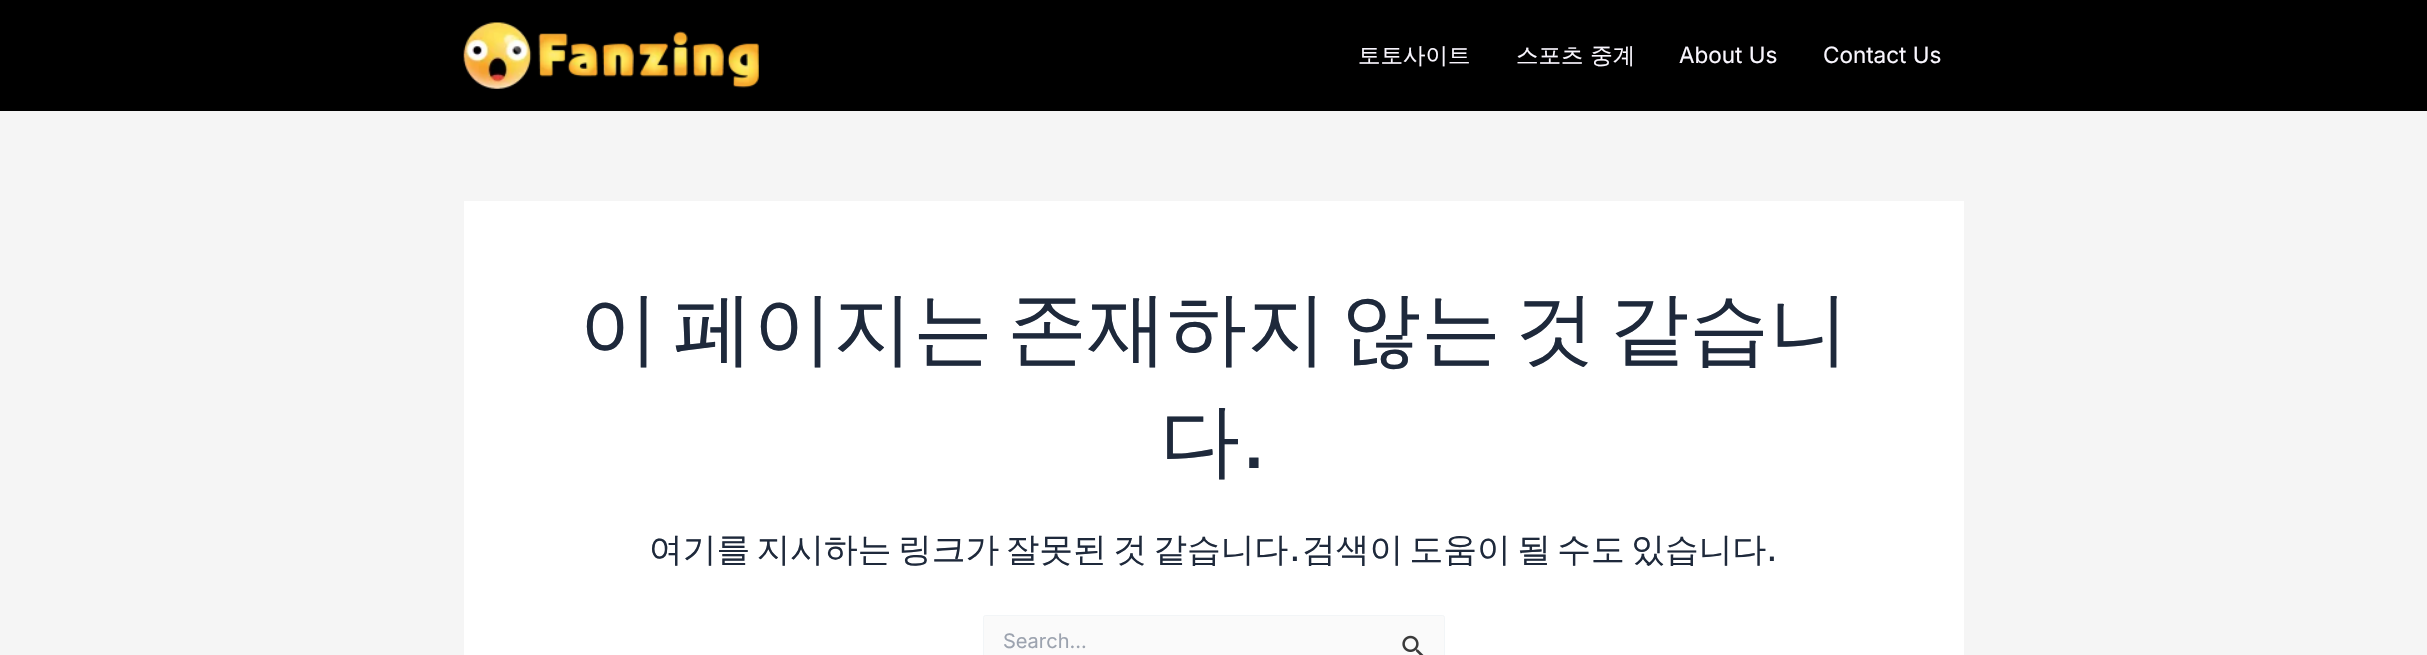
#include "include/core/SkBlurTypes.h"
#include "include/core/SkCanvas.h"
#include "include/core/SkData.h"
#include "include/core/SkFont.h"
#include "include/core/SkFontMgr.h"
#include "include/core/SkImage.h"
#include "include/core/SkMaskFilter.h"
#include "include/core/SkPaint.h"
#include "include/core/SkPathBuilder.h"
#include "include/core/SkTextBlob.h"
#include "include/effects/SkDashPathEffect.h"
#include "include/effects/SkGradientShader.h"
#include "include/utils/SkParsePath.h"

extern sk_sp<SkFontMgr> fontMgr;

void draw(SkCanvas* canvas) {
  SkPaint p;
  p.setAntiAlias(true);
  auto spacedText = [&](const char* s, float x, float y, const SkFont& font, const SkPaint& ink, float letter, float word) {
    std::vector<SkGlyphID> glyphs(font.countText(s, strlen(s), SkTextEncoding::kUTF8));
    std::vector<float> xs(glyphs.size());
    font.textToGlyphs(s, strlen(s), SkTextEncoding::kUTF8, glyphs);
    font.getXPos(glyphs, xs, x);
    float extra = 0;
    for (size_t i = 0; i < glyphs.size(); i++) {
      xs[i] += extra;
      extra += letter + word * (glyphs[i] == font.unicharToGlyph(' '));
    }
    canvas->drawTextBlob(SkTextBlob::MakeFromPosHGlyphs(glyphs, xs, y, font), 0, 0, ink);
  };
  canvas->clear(SkColorSetRGB(245, 245, 245));
  p.setColor(SK_ColorBLACK);
  canvas->drawRect(SkRect::MakeLTRB(0, 0, 2427, 111), p);
  canvas->drawImageRect(SkImages::DeferredFromEncodedData(SkData::MakeFromFileName("images/1.png")), SkRect::MakeLTRB(463, 22, 759, 89), SkSamplingOptions());
  p.setColor(SK_ColorWHITE);
  canvas->drawRect(SkRect::MakeLTRB(464, 201, 1964, 655), p);
  p.setColor(SkColorSetRGB(250, 250, 250));
  canvas->drawRoundRect(SkRect::MakeLTRB(983.5f, 615.5f, 1444.5f, 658.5f), 2, 2, p);
  p.setStyle(SkPaint::kStroke_Style);
  p.setStrokeWidth(1);
  p.setColor(SkColorSetRGB(242, 245, 247));
  canvas->drawRoundRect(SkRect::MakeLTRB(983.5f, 615.5f, 1444.5f, 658.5f), 2, 2, p);
  canvas->drawImageRect(SkImages::DeferredFromEncodedData(SkData::MakeFromFileName("images/2.png")), SkRect::MakeLTRB(1402, 635, 1424, 655), SkSamplingOptions());
  SkFont font1(fontMgr->matchFamilyStyle("WenQuanYi Zen Hei", SkFontStyle(500, SkFontStyle::kNormal_Width, SkFontStyle::kUpright_Slant)), 22.5f);
  font1.setSubpixel(true);
  p.setStyle(SkPaint::kFill_Style);
  p.setColor(SkColorSetRGB(249, 246, 254));
  canvas->drawString("토토사이트", 1358, 63, font1, p);
  canvas->drawString("스포츠 중계", 1516, 63, font1, p);
  SkFont font2(fontMgr->matchFamilyStyle("Inter", SkFontStyle::Normal()), 22.5f);
  font2.setSubpixel(true);
  canvas->drawString("About Us", 1679, 63, font2, p);
  canvas->drawString("Contact Us", 1823, 63, font2, p);
  SkFont font3(fontMgr->matchFamilyStyle("WenQuanYi Zen Hei", SkFontStyle(500, SkFontStyle::kNormal_Width, SkFontStyle::kUpright_Slant)), 80);
  font3.setSubpixel(true);
  p.setColor(SkColorSetRGB(30, 41, 59));
  spacedText("이 페이지는 존재하지 않는 것 같습니", 579, 356, font3, p, 0, -10);
  canvas->drawString("다", 1160, 468, font3, p);
  SkFont font4(fontMgr->matchFamilyStyle("Plus Jakarta Sans", SkFontStyle(600, SkFontStyle::kNormal_Width, SkFontStyle::kUpright_Slant)), 80);
  font4.setSubpixel(true);
  canvas->drawString(".", 1240, 468, font4, p);
  SkFont font5(fontMgr->matchFamilyStyle("WenQuanYi Zen Hei", SkFontStyle(500, SkFontStyle::kNormal_Width, SkFontStyle::kUpright_Slant)), 33.75f);
  font5.setSubpixel(true);
  spacedText("여기를 지시하는 링크가 잘못된 것 같습니다", 649, 561, font5, p, 0, -3.75f);
  SkFont font6(fontMgr->matchFamilyStyle("Plus Jakarta Sans", SkFontStyle(600, SkFontStyle::kNormal_Width, SkFontStyle::kUpright_Slant)), 33.75f);
  font6.setSubpixel(true);
  canvas->drawString(".", 1289, 561, font6, p);
  spacedText("검색이 도움이 될 수도 있습니다", 1302, 561, font5, p, 0, -3.75f);
  canvas->drawString(".", 1766, 561, font6, p);
  SkFont font7(fontMgr->matchFamilyStyle("Inter", SkFontStyle::Normal()), 20);
  font7.setSubpixel(true);
  p.setColor(SkColorSetRGB(156, 163, 175));
  canvas->drawString("Search...", 1003, 648, font7, p);
}
